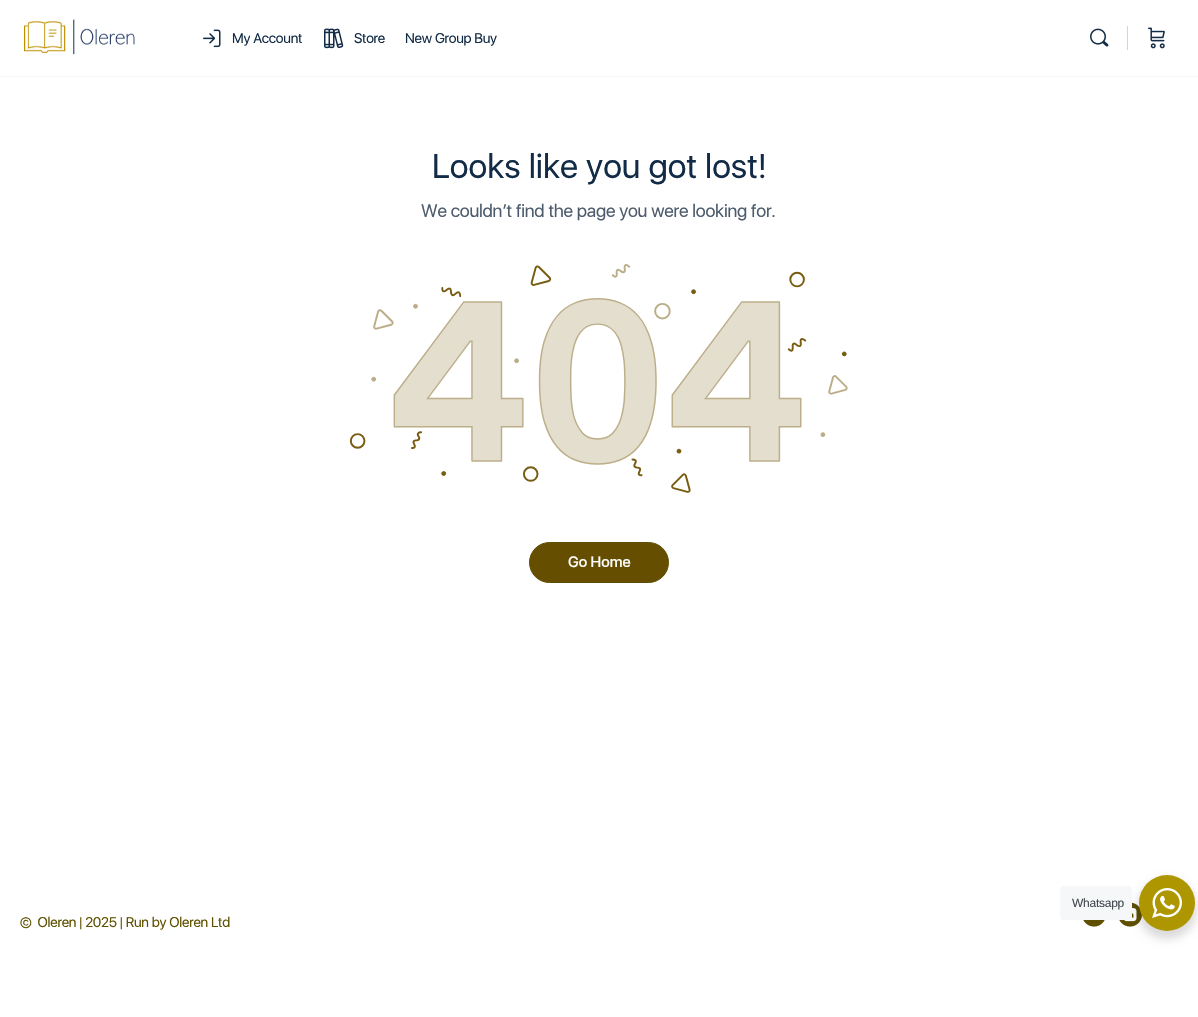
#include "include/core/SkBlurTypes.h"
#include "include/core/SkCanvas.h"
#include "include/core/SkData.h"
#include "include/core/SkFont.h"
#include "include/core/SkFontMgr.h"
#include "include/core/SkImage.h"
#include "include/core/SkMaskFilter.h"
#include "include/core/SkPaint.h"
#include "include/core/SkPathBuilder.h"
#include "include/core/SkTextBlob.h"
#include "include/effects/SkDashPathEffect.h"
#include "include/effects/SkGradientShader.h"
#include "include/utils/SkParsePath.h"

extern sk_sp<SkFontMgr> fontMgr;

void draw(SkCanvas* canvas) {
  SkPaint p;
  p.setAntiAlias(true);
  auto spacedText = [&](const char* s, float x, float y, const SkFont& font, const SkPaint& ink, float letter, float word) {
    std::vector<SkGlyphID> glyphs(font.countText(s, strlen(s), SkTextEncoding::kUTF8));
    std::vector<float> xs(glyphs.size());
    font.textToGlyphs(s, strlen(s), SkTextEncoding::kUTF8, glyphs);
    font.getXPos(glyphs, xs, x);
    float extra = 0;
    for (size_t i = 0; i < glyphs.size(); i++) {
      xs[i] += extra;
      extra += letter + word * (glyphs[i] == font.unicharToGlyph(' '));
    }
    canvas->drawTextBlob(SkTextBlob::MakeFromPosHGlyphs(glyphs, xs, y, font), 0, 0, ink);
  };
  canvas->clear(SK_ColorWHITE);
  p.setColor(SkColorSetRGB(246, 247, 248));
  canvas->drawRect(SkRect::MakeLTRB(0, 76, 1198, 77), p);
  canvas->drawImageRect(SkImages::DeferredFromEncodedData(SkData::MakeFromFileName("images/1.png")), SkRect::MakeLTRB(23, 19, 135, 55), SkSamplingOptions());
  canvas->drawImageRect(SkImages::DeferredFromEncodedData(SkData::MakeFromFileName("images/2.png")), SkRect::MakeLTRB(203, 29, 221, 48), SkSamplingOptions());
  canvas->drawImageRect(SkImages::DeferredFromEncodedData(SkData::MakeFromFileName("images/3.png")), SkRect::MakeLTRB(324, 28, 344, 49), SkSamplingOptions());
  canvas->drawImageRect(SkImages::DeferredFromEncodedData(SkData::MakeFromFileName("images/4.png")), SkRect::MakeLTRB(1090, 28, 1109, 47), SkSamplingOptions());
  p.setColor(SkColorSetRGB(208, 213, 218));
  canvas->drawRect(SkRect::MakeLTRB(1127, 26, 1128, 50), p);
  canvas->drawImageRect(SkImages::DeferredFromEncodedData(SkData::MakeFromFileName("images/5.png")), SkRect::MakeLTRB(1148, 27, 1165, 49), SkSamplingOptions());
  canvas->drawImageRect(SkImages::DeferredFromEncodedData(SkData::MakeFromFileName("images/6.png")), SkRect::MakeLTRB(349, 264, 848, 493), SkSamplingOptions());
  p.setColor(SkColorSetRGB(102, 78, 0));
  canvas->drawRoundRect(SkRect::MakeLTRB(529.5f, 542.5f, 668.5f, 582.5f), 20, 20, p);
  p.setStyle(SkPaint::kStroke_Style);
  p.setStrokeWidth(1);
  p.setColor(SkColorSetRGB(94, 77, 0));
  canvas->drawRoundRect(SkRect::MakeLTRB(529.5f, 542.5f, 668.5f, 582.5f), 20, 20, p);
  canvas->drawImageRect(SkImages::DeferredFromEncodedData(SkData::MakeFromFileName("images/7.png")), SkRect::MakeLTRB(1083, 920, 1105, 927), SkSamplingOptions());
  canvas->drawImageRect(SkImages::DeferredFromEncodedData(SkData::MakeFromFileName("images/8.png")), SkRect::MakeLTRB(1119, 902, 1142, 927), SkSamplingOptions());
  p.setStyle(SkPaint::kFill_Style);
  p.setColor(SkColorSetARGB(36, 0, 0, 0));
  p.setMaskFilter(SkMaskFilter::MakeBlur(kNormal_SkBlurStyle, 4));
  canvas->drawRoundRect(SkRect::MakeLTRB(1137, 879, 1197, 939), 30, 30, p);
  p.setMaskFilter(nullptr);
  p.setColor(SkColorSetRGB(245, 247, 249));
  canvas->drawRoundRect(SkRect::MakeLTRB(1060, 886, 1132, 920), 4, 4, p);
  p.setColor(SkColorSetRGB(173, 150, 0));
  canvas->drawCircle(1167, 903, 28, p);
  canvas->drawImageRect(SkImages::DeferredFromEncodedData(SkData::MakeFromFileName("images/9.png")), SkRect::MakeLTRB(1152, 888, 1182, 918), SkSamplingOptions());
  SkFont font1(fontMgr->matchFamilyStyle("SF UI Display", SkFontStyle::Normal()), 14);
  font1.setSubpixel(true);
  p.setColor(SkColorSetRGB(18, 43, 70));
  spacedText("My Account", 232, 43, font1, p, -0.25f, 0);
  spacedText("Store", 354, 43, font1, p, -0.25f, 0);
  spacedText("New Group Buy", 405, 43, font1, p, -0.25f, 0);
  SkFont font2(fontMgr->matchFamilyStyle("SF UI Display", SkFontStyle::Normal()), 34);
  font2.setSubpixel(true);
  canvas->drawString("Looks like you got lost!", 432, 178, font2, p);
  SkFont font3(fontMgr->matchFamilyStyle("SF UI Display", SkFontStyle::Normal()), 18);
  font3.setSubpixel(true);
  p.setColor(SkColorSetRGB(77, 92, 109));
  spacedText("We couldn’t find the page you were looking for.", 421, 217, font3, p, -0.25f, 0);
  SkFont font4(fontMgr->matchFamilyStyle("SF UI Display", SkFontStyle(500, SkFontStyle::kNormal_Width, SkFontStyle::kUpright_Slant)), 15);
  font4.setSubpixel(true);
  p.setColor(SK_ColorWHITE);
  canvas->drawString("Go Home", 568, 567, font4, p);
  p.setColor(SkColorSetRGB(94, 80, 0));
  spacedText("©  Oleren | 2025 | Run by Oleren Ltd", 20, 927, font1, p, -0.25f, 0);
  SkFont font5(fontMgr->matchFamilyStyle("Liberation Sans", SkFontStyle::Normal()), 12);
  font5.setSubpixel(true);
  p.setColor(SkColorSetRGB(67, 71, 78));
  spacedText("Whatsapp", 1072, 907, font5, p, -0.25f, 0);
}
